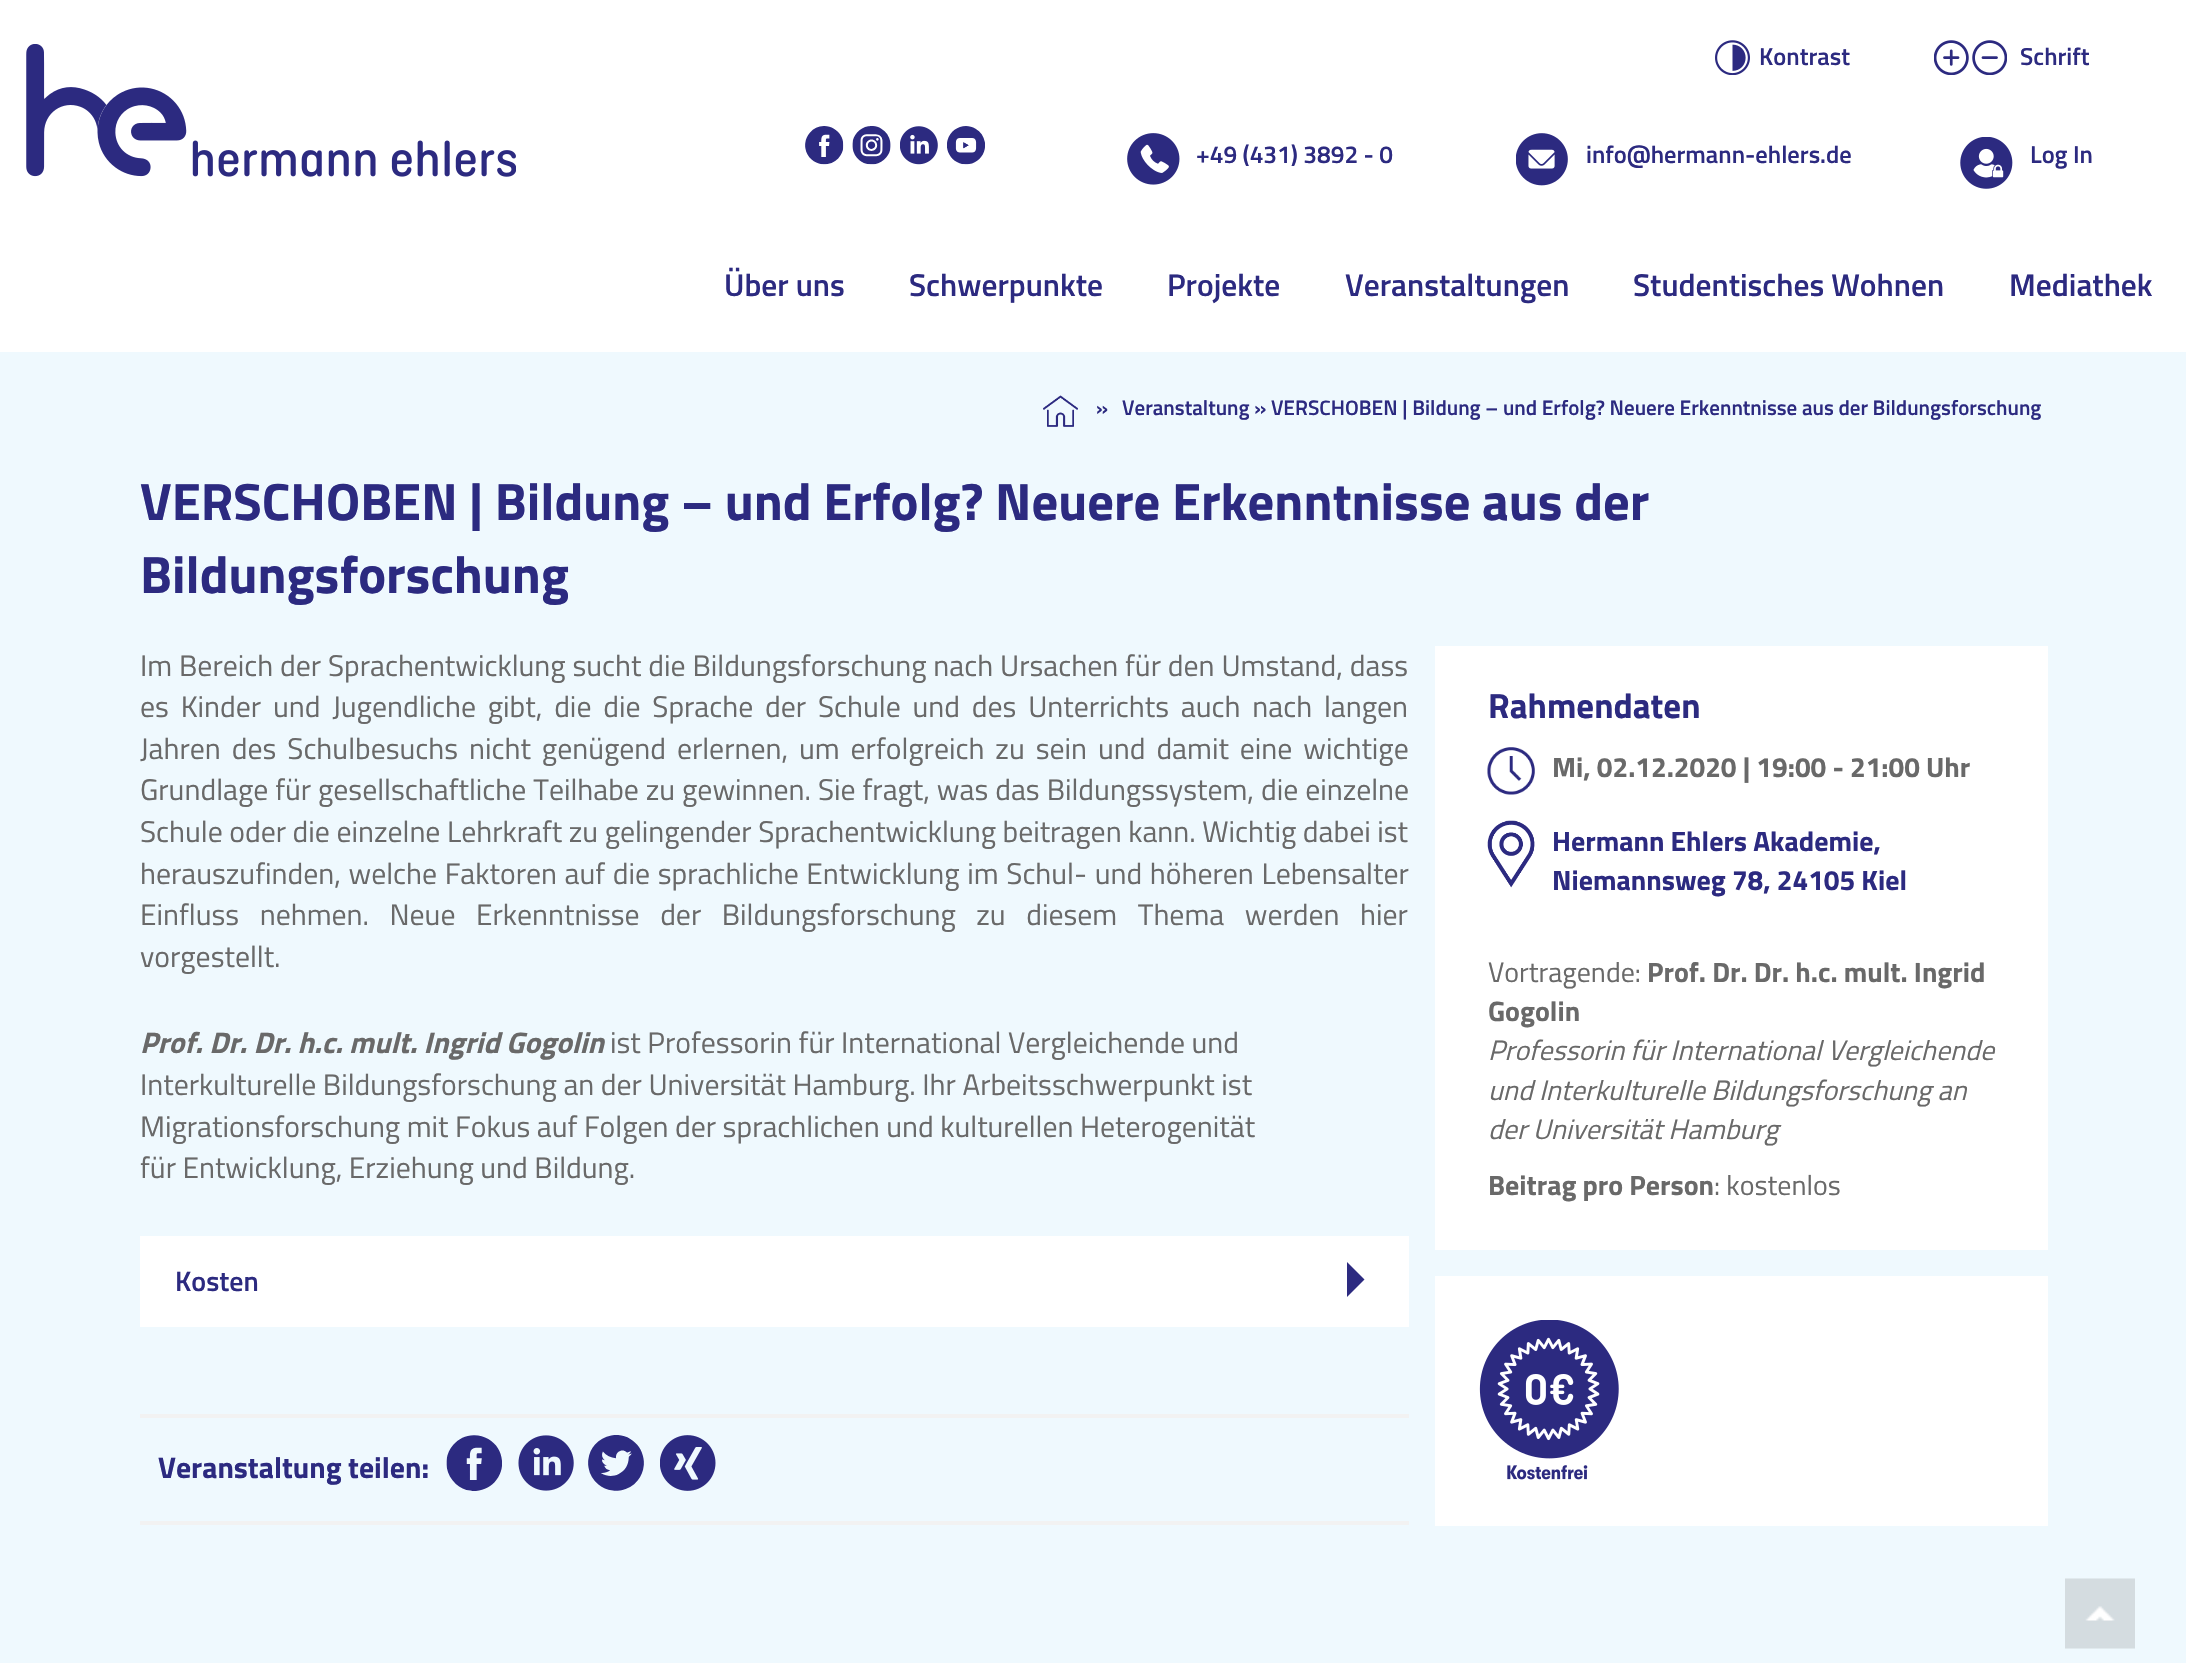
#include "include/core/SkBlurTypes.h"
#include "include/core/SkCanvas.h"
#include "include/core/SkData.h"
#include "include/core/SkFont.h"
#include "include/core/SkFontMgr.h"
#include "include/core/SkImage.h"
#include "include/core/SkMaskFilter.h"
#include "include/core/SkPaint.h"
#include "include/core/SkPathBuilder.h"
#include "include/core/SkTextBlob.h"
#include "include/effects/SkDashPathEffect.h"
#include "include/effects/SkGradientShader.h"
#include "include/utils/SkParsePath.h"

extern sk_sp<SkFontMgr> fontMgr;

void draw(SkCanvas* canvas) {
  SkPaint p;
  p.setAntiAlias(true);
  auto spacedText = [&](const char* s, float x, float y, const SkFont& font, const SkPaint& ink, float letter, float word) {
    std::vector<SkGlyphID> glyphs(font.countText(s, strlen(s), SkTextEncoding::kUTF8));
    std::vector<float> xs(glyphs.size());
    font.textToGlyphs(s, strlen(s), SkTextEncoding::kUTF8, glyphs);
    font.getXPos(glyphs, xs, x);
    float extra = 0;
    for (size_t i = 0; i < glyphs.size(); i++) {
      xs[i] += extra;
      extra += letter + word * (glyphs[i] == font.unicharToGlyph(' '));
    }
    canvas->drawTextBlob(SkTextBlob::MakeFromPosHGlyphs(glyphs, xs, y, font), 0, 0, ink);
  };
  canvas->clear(SkColorSetRGB(239, 249, 254));
  p.setColor(SK_ColorWHITE);
  canvas->drawRect(SkRect::MakeLTRB(0, 0, 2186, 352), p);
  canvas->drawImageRect(SkImages::DeferredFromEncodedData(SkData::MakeFromFileName("images/1.png")), SkRect::MakeLTRB(26, 44, 516, 177), SkSamplingOptions());
  canvas->drawImageRect(SkImages::DeferredFromEncodedData(SkData::MakeFromFileName("images/2.png")), SkRect::MakeLTRB(1715, 40, 1750, 75), SkSamplingOptions());
  canvas->drawImageRect(SkImages::DeferredFromEncodedData(SkData::MakeFromFileName("images/3.png")), SkRect::MakeLTRB(1934, 40, 1969, 75), SkSamplingOptions());
  canvas->drawImageRect(SkImages::DeferredFromEncodedData(SkData::MakeFromFileName("images/4.png")), SkRect::MakeLTRB(1972, 40, 2007, 75), SkSamplingOptions());
  canvas->drawImageRect(SkImages::DeferredFromEncodedData(SkData::MakeFromFileName("images/5.png")), SkRect::MakeLTRB(805, 126, 844, 165), SkSamplingOptions());
  canvas->drawImageRect(SkImages::DeferredFromEncodedData(SkData::MakeFromFileName("images/6.png")), SkRect::MakeLTRB(852, 126, 891, 165), SkSamplingOptions());
  canvas->drawImageRect(SkImages::DeferredFromEncodedData(SkData::MakeFromFileName("images/7.png")), SkRect::MakeLTRB(900, 126, 938, 165), SkSamplingOptions());
  canvas->drawImageRect(SkImages::DeferredFromEncodedData(SkData::MakeFromFileName("images/8.png")), SkRect::MakeLTRB(947, 126, 985, 165), SkSamplingOptions());
  canvas->drawImageRect(SkImages::DeferredFromEncodedData(SkData::MakeFromFileName("images/9.png")), SkRect::MakeLTRB(1127, 133, 1180, 185), SkSamplingOptions());
  canvas->drawImageRect(SkImages::DeferredFromEncodedData(SkData::MakeFromFileName("images/10.png")), SkRect::MakeLTRB(1516, 133, 1568, 186), SkSamplingOptions());
  canvas->drawImageRect(SkImages::DeferredFromEncodedData(SkData::MakeFromFileName("images/11.png")), SkRect::MakeLTRB(1960, 137, 2013, 189), SkSamplingOptions());
  canvas->drawImageRect(SkImages::DeferredFromEncodedData(SkData::MakeFromFileName("images/12.png")), SkRect::MakeLTRB(1043, 395, 1078, 427), SkSamplingOptions());
  canvas->drawRect(SkRect::MakeLTRB(140, 1236, 1409, 1327), p);
  p.setColor(SkColorSetRGB(44, 42, 128));
  canvas->drawPath(SkPathBuilder().moveTo(1347, 1297).lineTo(1347, 1262).lineTo(1364.5f, 1279.5f).close().detach(), p);
  p.setColor(SkColorSetRGB(242, 242, 242));
  canvas->drawRect(SkRect::MakeLTRB(140, 1414, 1409, 1418), p);
  canvas->drawRect(SkRect::MakeLTRB(140, 1521, 1409, 1525), p);
  canvas->drawImageRect(SkImages::DeferredFromEncodedData(SkData::MakeFromFileName("images/13.png")), SkRect::MakeLTRB(446, 1435, 502, 1491), SkSamplingOptions());
  canvas->drawImageRect(SkImages::DeferredFromEncodedData(SkData::MakeFromFileName("images/14.png")), SkRect::MakeLTRB(518, 1435, 574, 1491), SkSamplingOptions());
  canvas->drawImageRect(SkImages::DeferredFromEncodedData(SkData::MakeFromFileName("images/15.png")), SkRect::MakeLTRB(588, 1435, 644, 1491), SkSamplingOptions());
  canvas->drawImageRect(SkImages::DeferredFromEncodedData(SkData::MakeFromFileName("images/16.png")), SkRect::MakeLTRB(660, 1435, 716, 1491), SkSamplingOptions());
  p.setColor(SK_ColorWHITE);
  canvas->drawRect(SkRect::MakeLTRB(1435, 646, 2048, 1250), p);
  canvas->drawImageRect(SkImages::DeferredFromEncodedData(SkData::MakeFromFileName("images/17.png")), SkRect::MakeLTRB(1487, 747, 1535, 795), SkSamplingOptions());
  canvas->drawImageRect(SkImages::DeferredFromEncodedData(SkData::MakeFromFileName("images/18.png")), SkRect::MakeLTRB(1487, 820, 1535, 888), SkSamplingOptions());
  canvas->drawRect(SkRect::MakeLTRB(1435, 1276, 2048, 1526), p);
  canvas->drawImageRect(SkImages::DeferredFromEncodedData(SkData::MakeFromFileName("images/19.png")), SkRect::MakeLTRB(1479, 1320, 1619, 1480), SkSamplingOptions());
  canvas->drawImageRect(SkImages::DeferredFromEncodedData(SkData::MakeFromFileName("images/20.png")), SkRect::MakeLTRB(2065, 1578, 2135, 1649), SkSamplingOptions());
  SkFont font1(fontMgr->matchFamilyStyle("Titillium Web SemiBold", SkFontStyle(600, SkFontStyle::kNormal_Width, SkFontStyle::kUpright_Slant)), 24.5f);
  font1.setSubpixel(true);
  p.setColor(SkColorSetRGB(44, 42, 128));
  canvas->drawString("Kontrast", 1759, 65, font1, p);
  canvas->drawString("Schrift", 2020, 65, font1, p);
  canvas->drawString("+49 (431) 3892 - 0", 1196, 163, font1, p);
  canvas->drawString("info@hermann-ehlers.de", 1586, 163, font1, p);
  canvas->drawString("Log In", 2030, 163, font1, p);
  SkFont font2(fontMgr->matchFamilyStyle("Titillium Web SemiBold", SkFontStyle(600, SkFontStyle::kNormal_Width, SkFontStyle::kUpright_Slant)), 31.5f);
  font2.setSubpixel(true);
  canvas->drawString("Über uns", 724, 296, font2, p);
  canvas->drawString("Schwerpunkte", 909, 296, font2, p);
  canvas->drawString("Projekte", 1167, 296, font2, p);
  canvas->drawString("Veranstaltungen", 1345, 296, font2, p);
  canvas->drawString("Studentisches Wohnen", 1633, 296, font2, p);
  canvas->drawString("Mediathek", 2009, 296, font2, p);
  SkFont font3(fontMgr->matchFamilyStyle("Titillium Web SemiBold", SkFontStyle(600, SkFontStyle::kNormal_Width, SkFontStyle::kUpright_Slant)), 21);
  font3.setSubpixel(true);
  canvas->drawString("»", 1096, 415, font3, p);
  canvas->drawString("Veranstaltung » VERSCHOBEN | Bildung – und Erfolg? Neuere Erkenntnisse aus der Bildungsforschung", 1122, 415, font3, p);
  SkFont font4(fontMgr->matchFamilyStyle("Titillium Web", SkFontStyle::Bold()), 52.5f);
  font4.setSubpixel(true);
  canvas->drawString("VERSCHOBEN | Bildung – und Erfolg? Neuere Erkenntnisse aus der", 140, 520, font4, p);
  canvas->drawString("Bildungsforschung", 140, 593, font4, p);
  SkFont font5(fontMgr->matchFamilyStyle("Titillium Web", SkFontStyle::Normal()), 29.75f);
  font5.setSubpixel(true);
  p.setColor(SkColorSetRGB(105, 105, 105));
  spacedText("Im Bereich der Sprachentwicklung sucht die Bildungsforschung nach Ursachen für den Umstand, dass", 140, 676, font5, p, 0, 0.3f);
  spacedText("es Kinder und Jugendliche gibt, die die Sprache der Schule und des Unterrichts auch nach langen", 140, 717, font5, p, 0, 5.25f);
  spacedText("Jahren des Schulbesuchs nicht genügend erlernen, um erfolgreich zu sein und damit eine wichtige", 140, 759, font5, p, 0, 4.4f);
  spacedText("Grundlage für gesellschaftliche Teilhabe zu gewinnen. Sie fragt, was das Bildungssystem, die einzelne", 140, 800, font5, p, 0, 0.4f);
  canvas->drawString("Schule oder die einzelne Lehrkraft zu gelingender Sprachentwicklung beitragen kann. Wichtig dabei ist", 140, 842, font5, p);
  spacedText("herauszufinden, welche Faktoren auf die sprachliche Entwicklung im Schul- und höheren Lebensalter", 140, 884, font5, p, 0, 1.1f);
  spacedText("Einfluss nehmen. Neue Erkenntnisse der Bildungsforschung zu diesem Thema werden hier", 140, 925, font5, p, 0, 14);
  canvas->drawString("vorgestellt.", 140, 967, font5, p);
  SkFont font6(fontMgr->matchFamilyStyle("Titillium Web", SkFontStyle::BoldItalic()), 29.75f);
  font6.setSubpixel(true);
  canvas->drawString("Prof. Dr. Dr. h.c. mult. Ingrid Gogolin", 140, 1053, font6, p);
  canvas->drawString("ist Professorin für International Vergleichende und", 610, 1053, font5, p);
  canvas->drawString("Interkulturelle Bildungsforschung an der Universität Hamburg. Ihr Arbeitsschwerpunkt ist", 140, 1095, font5, p);
  canvas->drawString("Migrationsforschung mit Fokus auf Folgen der sprachlichen und kulturellen Heterogenität", 140, 1137, font5, p);
  canvas->drawString("für Entwicklung, Erziehung und Bildung.", 140, 1178, font5, p);
  SkFont font7(fontMgr->matchFamilyStyle("Titillium Web SemiBold", SkFontStyle(600, SkFontStyle::kNormal_Width, SkFontStyle::kUpright_Slant)), 28);
  font7.setSubpixel(true);
  p.setColor(SkColorSetRGB(44, 42, 128));
  canvas->drawString("Kosten", 175, 1291, font7, p);
  SkFont font8(fontMgr->matchFamilyStyle("Titillium Web", SkFontStyle::Bold()), 29.75f);
  font8.setSubpixel(true);
  canvas->drawString("Veranstaltung teilen:", 158, 1478, font8, p);
  SkFont font9(fontMgr->matchFamilyStyle("Titillium Web", SkFontStyle::Bold()), 35);
  font9.setSubpixel(true);
  canvas->drawString("Rahmendaten", 1488, 718, font9, p);
  SkFont font10(fontMgr->matchFamilyStyle("Titillium Web", SkFontStyle::Bold()), 28);
  font10.setSubpixel(true);
  p.setColor(SkColorSetRGB(105, 105, 105));
  canvas->drawString("Mi, 02.12.2020 | 19:00 - 21:00 Uhr", 1552, 777, font10, p);
  p.setColor(SkColorSetRGB(44, 42, 128));
  canvas->drawString("Hermann Ehlers Akademie,", 1552, 851, font10, p);
  canvas->drawString("Niemannsweg 78, 24105 Kiel", 1552, 890, font10, p);
  SkFont font11(fontMgr->matchFamilyStyle("Titillium Web", SkFontStyle::Normal()), 28);
  font11.setSubpixel(true);
  p.setColor(SkColorSetRGB(105, 105, 105));
  canvas->drawString("Vortragende:", 1488, 982, font11, p);
  canvas->drawString("Prof. Dr. Dr. h.c. mult. Ingrid", 1647, 982, font10, p);
  canvas->drawString("Gogolin", 1488, 1021, font10, p);
  SkFont font12(fontMgr->matchFamilyStyle("Titillium Web", SkFontStyle::Italic()), 28);
  font12.setSubpixel(true);
  canvas->drawString("Professorin für International Vergleichende", 1488, 1060, font12, p);
  canvas->drawString("und Interkulturelle Bildungsforschung an", 1488, 1100, font12, p);
  canvas->drawString("der Universität Hamburg", 1488, 1139, font12, p);
  canvas->drawString("Beitrag pro Person", 1488, 1195, font10, p);
  canvas->drawString(": kostenlos", 1714, 1195, font11, p);
}
